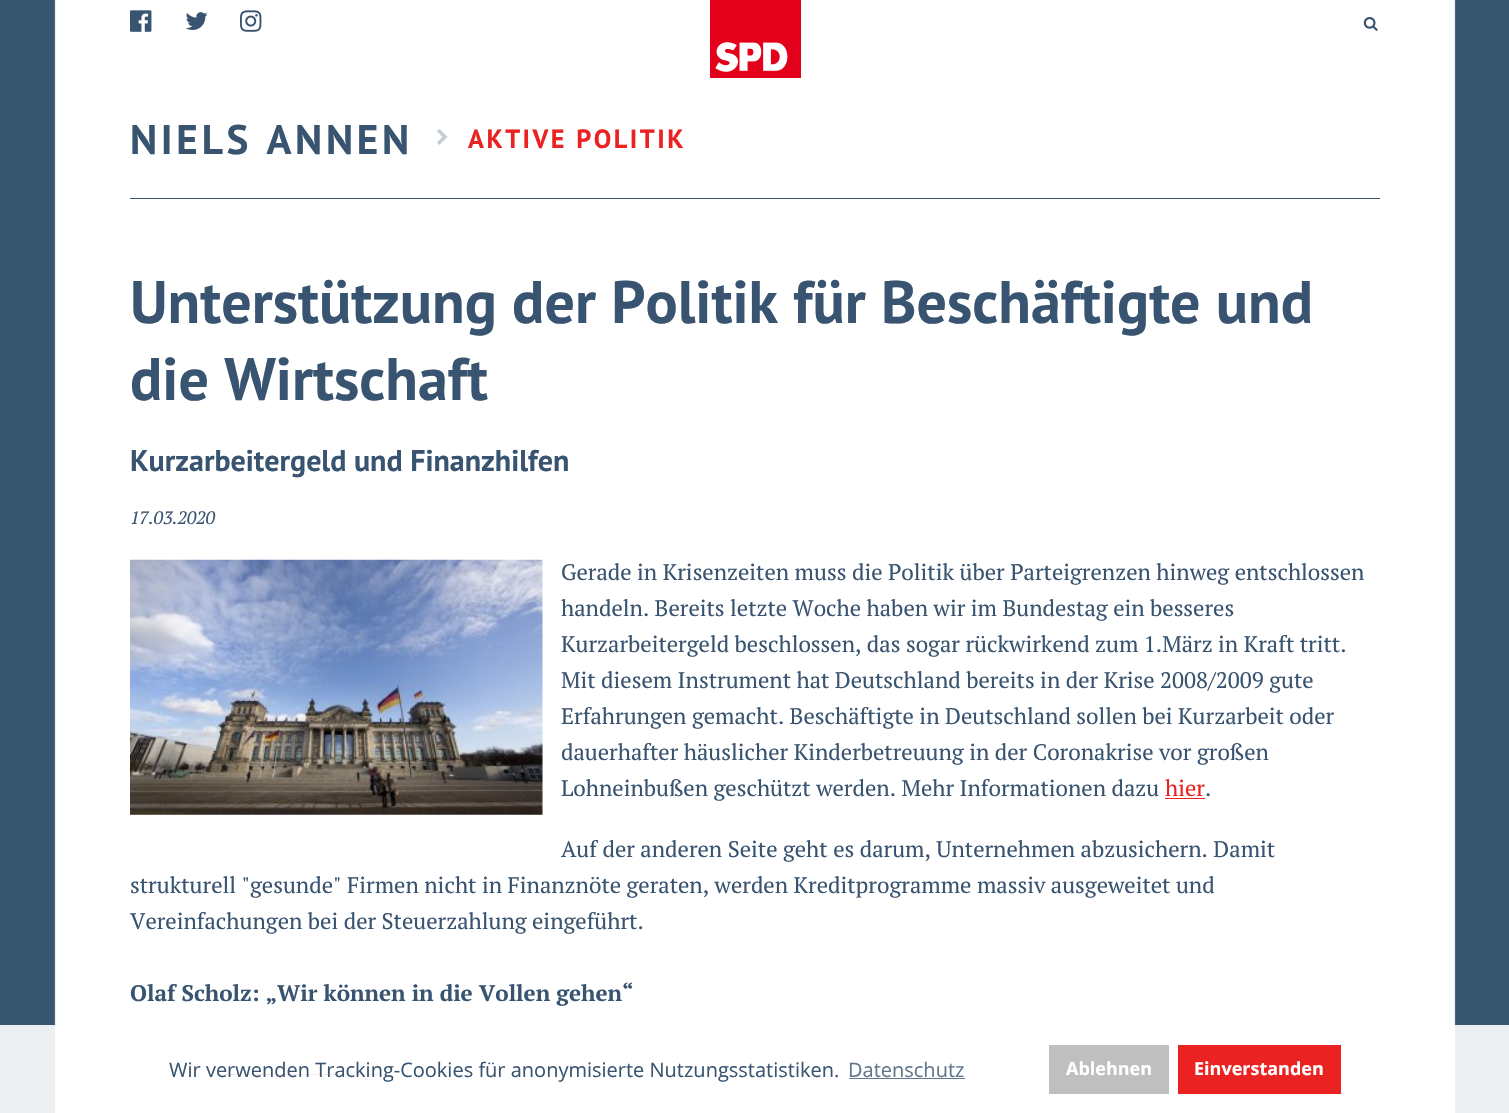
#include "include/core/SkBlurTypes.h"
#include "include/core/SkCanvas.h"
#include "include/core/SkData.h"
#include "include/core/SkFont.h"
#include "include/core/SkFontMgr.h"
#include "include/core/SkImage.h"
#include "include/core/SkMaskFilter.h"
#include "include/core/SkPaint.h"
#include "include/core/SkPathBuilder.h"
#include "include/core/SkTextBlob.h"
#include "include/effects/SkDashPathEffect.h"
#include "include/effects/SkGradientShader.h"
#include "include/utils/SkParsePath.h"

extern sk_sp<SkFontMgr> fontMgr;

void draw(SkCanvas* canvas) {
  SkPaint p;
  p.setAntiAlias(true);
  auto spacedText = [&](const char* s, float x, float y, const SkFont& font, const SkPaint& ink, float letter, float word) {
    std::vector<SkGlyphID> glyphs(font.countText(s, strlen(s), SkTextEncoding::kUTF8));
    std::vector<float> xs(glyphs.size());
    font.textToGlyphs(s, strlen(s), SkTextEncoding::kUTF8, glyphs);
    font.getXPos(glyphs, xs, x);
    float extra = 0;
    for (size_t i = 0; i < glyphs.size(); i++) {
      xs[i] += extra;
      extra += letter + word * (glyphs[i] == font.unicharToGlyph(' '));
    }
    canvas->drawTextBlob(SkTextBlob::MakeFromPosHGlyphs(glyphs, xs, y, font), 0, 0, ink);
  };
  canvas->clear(SK_ColorWHITE);
  canvas->drawImageRect(SkImages::DeferredFromEncodedData(SkData::MakeFromFileName("images/1.png")), SkRect::MakeLTRB(0, 0, 1509, 1113), SkSamplingOptions());
  canvas->drawImageRect(SkImages::DeferredFromEncodedData(SkData::MakeFromFileName("images/2.png")), SkRect::MakeLTRB(710, 0, 801, 78), SkSamplingOptions());
  p.setColor(SkColorSetRGB(57, 84, 112));
  canvas->drawRect(SkRect::MakeLTRB(130, 198, 1380, 199), p);
  canvas->drawImageRect(SkImages::DeferredFromEncodedData(SkData::MakeFromFileName("images/3.png")), SkRect::MakeLTRB(130, 10, 152, 32), SkSamplingOptions());
  canvas->drawImageRect(SkImages::DeferredFromEncodedData(SkData::MakeFromFileName("images/4.png")), SkRect::MakeLTRB(185, 12, 208, 30), SkSamplingOptions());
  canvas->drawImageRect(SkImages::DeferredFromEncodedData(SkData::MakeFromFileName("images/5.png")), SkRect::MakeLTRB(240, 10, 262, 32), SkSamplingOptions());
  canvas->drawImageRect(SkImages::DeferredFromEncodedData(SkData::MakeFromFileName("images/6.png")), SkRect::MakeLTRB(1363, 17, 1378, 31), SkSamplingOptions());
  canvas->drawImageRect(SkImages::DeferredFromEncodedData(SkData::MakeFromFileName("images/7.png")), SkRect::MakeLTRB(437, 129, 448, 145), SkSamplingOptions());
  canvas->drawImageRect(SkImages::DeferredFromEncodedData(SkData::MakeFromFileName("images/8.png")), SkRect::MakeLTRB(130, 559, 543, 815), SkSamplingOptions());
  p.setColor(SkColorSetRGB(234, 34, 33));
  canvas->drawRect(SkRect::MakeLTRB(1165, 798, 1205, 799), p);
  canvas->drawRect(SkRect::MakeLTRB(225, 1074, 379, 1075), p);
  p.setColor(SkColorSetARGB(230, 255, 255, 255));
  canvas->drawRect(SkRect::MakeLTRB(0, 1025, 1509, 1113), p);
  p.setColor(SkColorSetRGB(97, 118, 141));
  canvas->drawRect(SkRect::MakeLTRB(849, 1078, 965, 1079), p);
  p.setColor(SkColorSetARGB(64, 0, 0, 0));
  canvas->drawRect(SkRect::MakeLTRB(1049, 1045, 1169, 1094), p);
  p.setColor(SkColorSetRGB(234, 34, 33));
  canvas->drawRect(SkRect::MakeLTRB(1178, 1045, 1341, 1094), p);
  SkFont font1(fontMgr->matchFamilyStyle("PT Sans", SkFontStyle::Bold()), 41.25f);
  font1.setSubpixel(true);
  p.setColor(SkColorSetRGB(57, 84, 112));
  spacedText("NIELS ANNEN", 130, 154, font1, p, 3.75f, 0);
  SkFont font2(fontMgr->matchFamilyStyle("PT Sans", SkFontStyle::Bold()), 26.25f);
  font2.setSubpixel(true);
  p.setColor(SkColorSetRGB(234, 34, 33));
  spacedText("AKTIVE POLITIK", 468, 148, font2, p, 2.5f, 0);
  SkFont font3(fontMgr->matchFamilyStyle("PT Sans", SkFontStyle::Bold()), 60);
  font3.setSubpixel(true);
  p.setColor(SkColorSetRGB(57, 84, 112));
  canvas->drawString("Unterstützung der Politik für Beschäftigte und", 130, 323, font3, p);
  canvas->drawString("die Wirtschaft", 130, 400, font3, p);
  SkFont font4(fontMgr->matchFamilyStyle("PT Sans", SkFontStyle::Bold()), 30);
  font4.setSubpixel(true);
  canvas->drawString("Kurzarbeitergeld und Finanzhilfen", 130, 471, font4, p);
  SkFont font5(fontMgr->matchFamilyStyle("PT Serif", SkFontStyle::Italic()), 18);
  font5.setSubpixel(true);
  canvas->drawString("17.03.2020", 130, 524, font5, p);
  SkFont font6(fontMgr->matchFamilyStyle("PT Serif", SkFontStyle::Normal()), 22.5f);
  font6.setSubpixel(true);
  canvas->drawString("Gerade in Krisenzeiten muss die Politik über Parteigrenzen hinweg entschlossen", 561, 580, font6, p);
  canvas->drawString("handeln. Bereits letzte Woche haben wir im Bundestag ein besseres", 561, 616, font6, p);
  canvas->drawString("Kurzarbeitergeld beschlossen, das sogar rückwirkend zum 1.März in Kraft tritt.", 561, 652, font6, p);
  canvas->drawString("Mit diesem Instrument hat Deutschland bereits in der Krise 2008/2009 gute", 561, 688, font6, p);
  canvas->drawString("Erfahrungen gemacht. Beschäftigte in Deutschland sollen bei Kurzarbeit oder", 561, 724, font6, p);
  canvas->drawString("dauerhafter häuslicher Kinderbetreuung in der Coronakrise vor großen", 561, 760, font6, p);
  canvas->drawString("Lohneinbußen geschützt werden. Mehr Informationen dazu", 561, 796, font6, p);
  p.setColor(SkColorSetRGB(234, 34, 33));
  canvas->drawString("hier", 1165, 796, font6, p);
  p.setColor(SkColorSetRGB(57, 84, 112));
  canvas->drawString(".", 1205, 796, font6, p);
  canvas->drawString("Auf der anderen Seite geht es darum, Unternehmen abzusichern. Damit", 561, 857, font6, p);
  canvas->drawString("strukturell \"gesunde\" Firmen nicht in Finanznöte geraten, werden Kreditprogramme massiv ausgeweitet und", 130, 893, font6, p);
  canvas->drawString("Vereinfachungen bei der Steuerzahlung eingeführt.", 130, 929, font6, p);
  SkFont font7(fontMgr->matchFamilyStyle("PT Serif", SkFontStyle::Bold()), 22.5f);
  font7.setSubpixel(true);
  canvas->drawString("Olaf Scholz: „Wir können in die Vollen gehen“", 130, 1001, font7, p);
  SkFont font8(fontMgr->matchFamilyStyle("Open Sans", SkFontStyle::Normal()), 20);
  font8.setSubpixel(true);
  canvas->drawString("Wir verwenden Tracking-Cookies für anonymisierte Nutzungsstatistiken.", 169, 1077, font8, p);
  p.setColor(SkColorSetRGB(96, 118, 140));
  canvas->drawString("Datenschutz", 848, 1077, font8, p);
  SkFont font9(fontMgr->matchFamilyStyle("Open Sans", SkFontStyle::Bold()), 18);
  font9.setSubpixel(true);
  p.setColor(SK_ColorWHITE);
  canvas->drawString("Ablehnen", 1066, 1075, font9, p);
  canvas->drawString("Einverstanden", 1194, 1075, font9, p);
}
